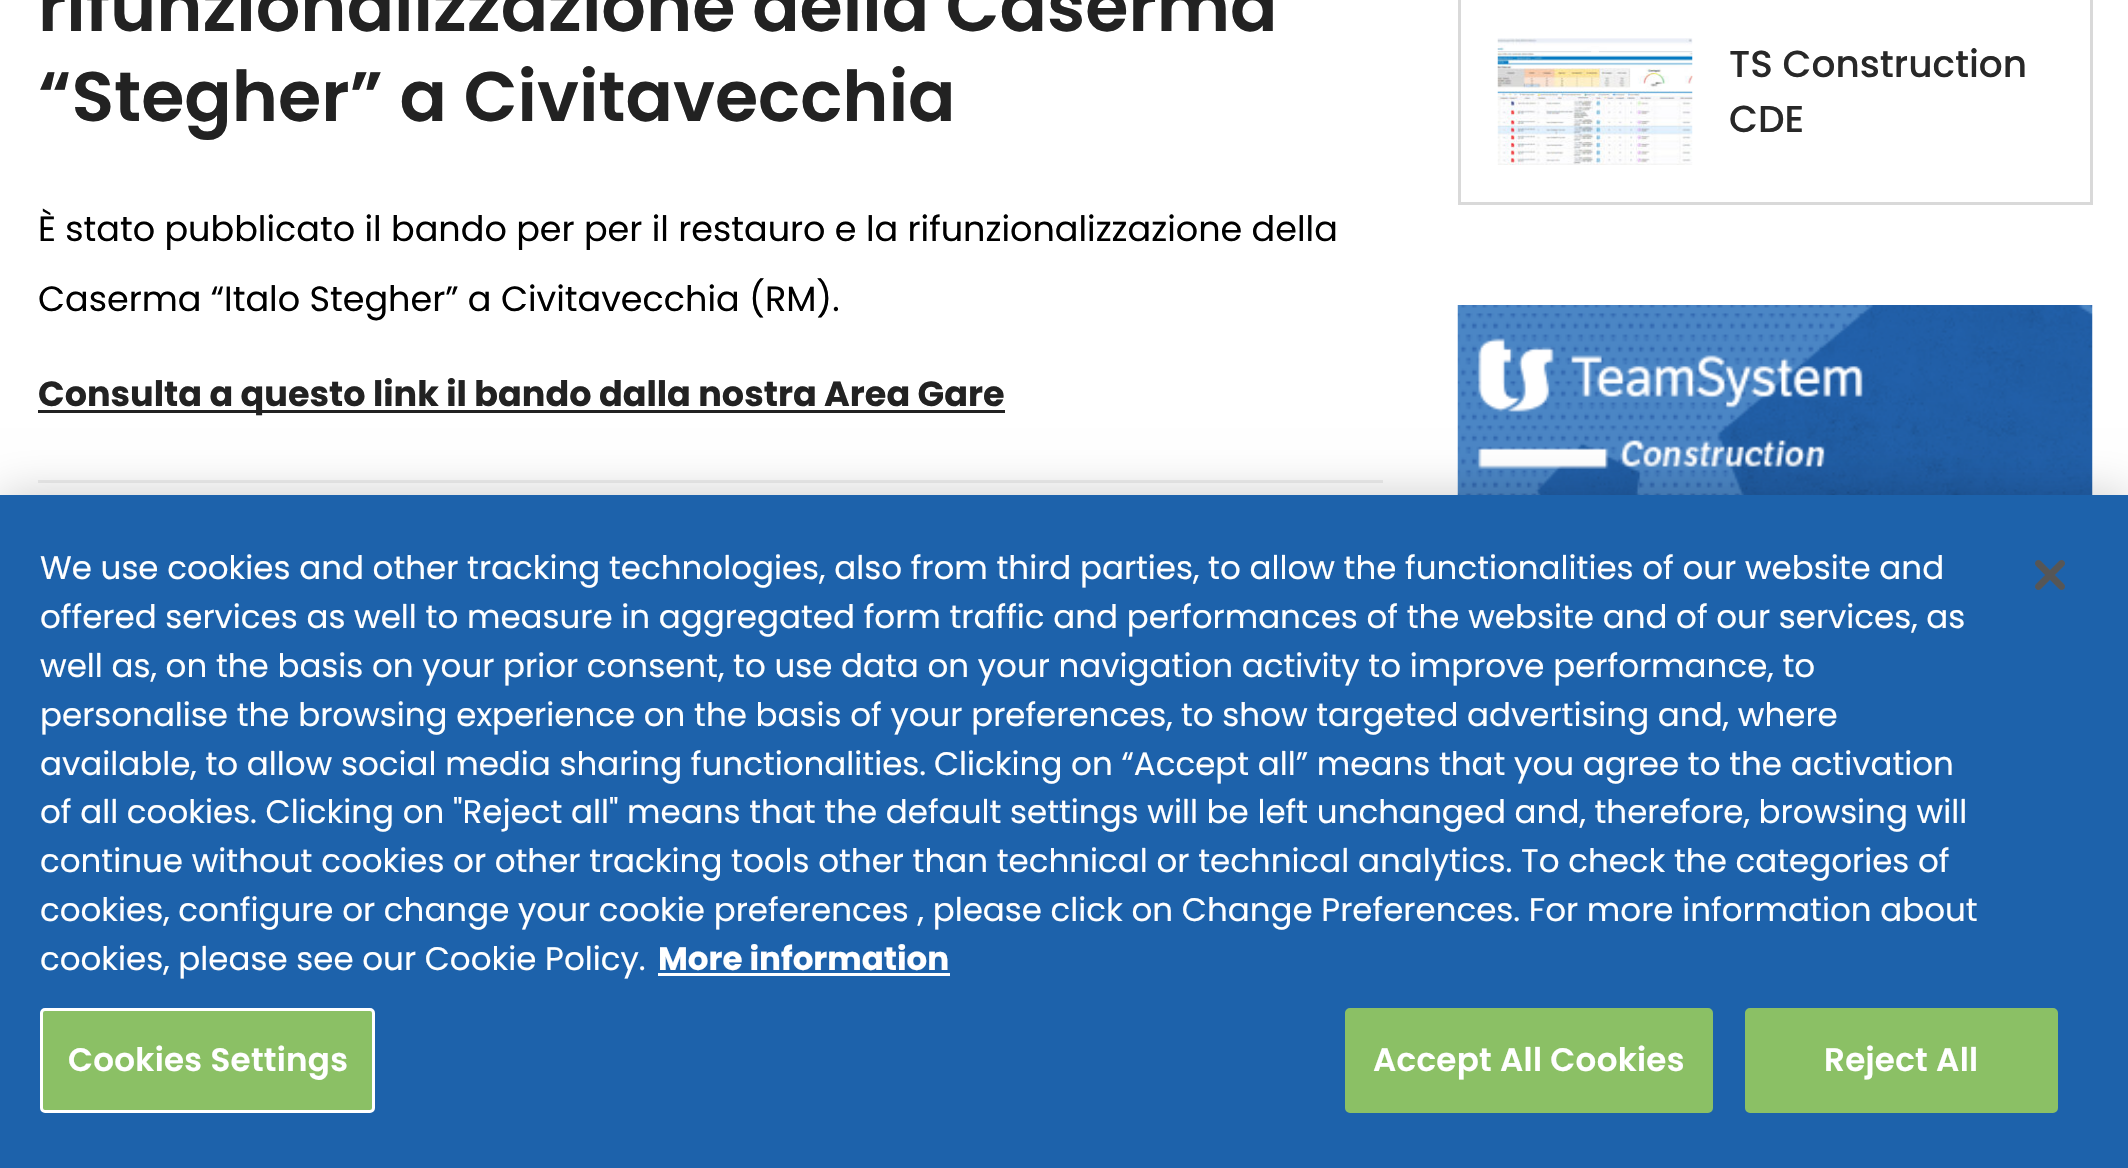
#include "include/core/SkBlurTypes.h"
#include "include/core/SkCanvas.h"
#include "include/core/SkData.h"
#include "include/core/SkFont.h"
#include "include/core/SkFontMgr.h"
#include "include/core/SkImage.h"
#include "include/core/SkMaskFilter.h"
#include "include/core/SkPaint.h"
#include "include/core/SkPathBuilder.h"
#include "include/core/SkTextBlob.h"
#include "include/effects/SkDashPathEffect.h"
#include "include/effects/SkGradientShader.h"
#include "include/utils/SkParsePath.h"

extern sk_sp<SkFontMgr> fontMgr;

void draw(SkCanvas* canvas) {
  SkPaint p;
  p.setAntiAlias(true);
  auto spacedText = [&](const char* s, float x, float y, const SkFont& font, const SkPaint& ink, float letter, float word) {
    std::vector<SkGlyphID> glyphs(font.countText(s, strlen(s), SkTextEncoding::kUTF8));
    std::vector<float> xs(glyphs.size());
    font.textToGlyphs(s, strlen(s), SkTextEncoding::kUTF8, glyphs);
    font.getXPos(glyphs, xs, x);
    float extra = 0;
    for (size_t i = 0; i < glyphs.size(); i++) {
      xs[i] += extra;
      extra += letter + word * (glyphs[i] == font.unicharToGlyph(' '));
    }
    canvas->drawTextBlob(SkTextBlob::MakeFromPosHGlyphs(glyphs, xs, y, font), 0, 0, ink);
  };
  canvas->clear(SK_ColorWHITE);
  p.setColor(SkColorSetRGB(34, 34, 34));
  canvas->drawRect(SkRect::MakeLTRB(38, 410, 1005, 413), p);
  p.setColor(SkColorSetRGB(238, 238, 238));
  canvas->drawRect(SkRect::MakeLTRB(38, 480, 1383, 483), p);
  p.setStyle(SkPaint::kStroke_Style);
  p.setStrokeWidth(3);
  p.setColor(SkColorSetRGB(217, 217, 217));
  canvas->drawRect(SkRect::MakeLTRB(1459.5f, -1.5f, 2091.5f, 203.5f), p);
  canvas->drawImageRect(SkImages::DeferredFromEncodedData(SkData::MakeFromFileName("images/1.png")), SkRect::MakeLTRB(1497, 38, 1693, 165), SkSamplingOptions());
  canvas->drawImageRect(SkImages::DeferredFromEncodedData(SkData::MakeFromFileName("images/2.png")), SkRect::MakeLTRB(1457, 305, 2093, 495), SkSamplingOptions());
  p.setStyle(SkPaint::kFill_Style);
  p.setColor(SkColorSetARGB(51, 0, 0, 0));
  p.setMaskFilter(SkMaskFilter::MakeBlur(kNormal_SkBlurStyle, 22.5f));
  canvas->drawRect(SkRect::MakeLTRB(0, 495, 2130, 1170), p);
  p.setMaskFilter(nullptr);
  p.setColor(SkColorSetRGB(29, 98, 171));
  canvas->drawRect(SkRect::MakeLTRB(0, 495, 2128, 1168), p);
  p.setColor(SK_ColorWHITE);
  canvas->drawRect(SkRect::MakeLTRB(658, 973, 950, 976), p);
  p.setColor(SkColorSetRGB(139, 192, 101));
  canvas->drawRoundRect(SkRect::MakeLTRB(41.5f, 1009.5f, 373.5f, 1111.5f), 3.5f, 3.5f, p);
  p.setStyle(SkPaint::kStroke_Style);
  p.setColor(SK_ColorWHITE);
  canvas->drawRoundRect(SkRect::MakeLTRB(41.5f, 1009.5f, 373.5f, 1111.5f), 3.5f, 3.5f, p);
  p.setStyle(SkPaint::kFill_Style);
  p.setColor(SkColorSetRGB(139, 192, 101));
  canvas->drawRoundRect(SkRect::MakeLTRB(1346.5f, 1009.5f, 1711.5f, 1111.5f), 3.5f, 3.5f, p);
  p.setStyle(SkPaint::kStroke_Style);
  canvas->drawRoundRect(SkRect::MakeLTRB(1346.5f, 1009.5f, 1711.5f, 1111.5f), 3.5f, 3.5f, p);
  p.setStyle(SkPaint::kFill_Style);
  canvas->drawRoundRect(SkRect::MakeLTRB(1746.5f, 1009.5f, 2056.5f, 1111.5f), 3.5f, 3.5f, p);
  p.setStyle(SkPaint::kStroke_Style);
  canvas->drawRoundRect(SkRect::MakeLTRB(1746.5f, 1009.5f, 2056.5f, 1111.5f), 3.5f, 3.5f, p);
  canvas->drawImageRect(SkImages::DeferredFromEncodedData(SkData::MakeFromFileName("images/3.png")), SkRect::MakeLTRB(2035, 560, 2065, 590), SkSamplingOptions());
  SkFont font1(fontMgr->matchFamilyStyle("Poppins", SkFontStyle(600, SkFontStyle::kNormal_Width, SkFontStyle::kUpright_Slant)), 70);
  font1.setSubpixel(true);
  p.setStyle(SkPaint::kFill_Style);
  p.setColor(SkColorSetRGB(34, 34, 34));
  canvas->drawString("rifunzionalizzazione della Caserma", 38, 31, font1, p);
  canvas->drawString("“Stegher” a Civitavecchia", 38, 121, font1, p);
  SkFont font2(fontMgr->matchFamilyStyle("Poppins", SkFontStyle::Normal()), 35);
  font2.setSubpixel(true);
  p.setColor(SK_ColorBLACK);
  canvas->drawString("È stato pubblicato il bando per per il restauro e la rifunzionalizzazione della", 38, 241, font2, p);
  canvas->drawString("Caserma “Italo Stegher” a Civitavecchia (RM).", 38, 311, font2, p);
  SkFont font3(fontMgr->matchFamilyStyle("Poppins", SkFontStyle::Bold()), 35);
  font3.setSubpixel(true);
  p.setColor(SkColorSetRGB(34, 34, 34));
  canvas->drawString("Consulta a questo link il bando dalla nostra Area Gare", 38, 406, font3, p);
  SkFont font4(fontMgr->matchFamilyStyle("Poppins", SkFontStyle(500, SkFontStyle::kNormal_Width, SkFontStyle::kUpright_Slant)), 37.5f);
  font4.setSubpixel(true);
  p.setColor(SkColorSetRGB(40, 40, 40));
  canvas->drawString("TS Construction", 1729, 77, font4, p);
  canvas->drawString("CDE", 1729, 132, font4, p);
  SkFont font5(fontMgr->matchFamilyStyle("Poppins", SkFontStyle::Normal()), 32.52f);
  font5.setSubpixel(true);
  p.setColor(SK_ColorWHITE);
  canvas->drawString("We use cookies and other tracking technologies, also from third parties, to allow the functionalities of our website and", 40, 579, font5, p);
  canvas->drawString("offered services as well to measure in aggregated form traffic and performances of the website and of our services, as", 40, 628, font5, p);
  canvas->drawString("well as, on the basis on your prior consent, to use data on your navigation activity to improve performance, to", 40, 677, font5, p);
  canvas->drawString("personalise the browsing experience on the basis of your preferences,", 40, 726, font5, p);
  canvas->drawString("to show targeted advertising and, where", 1181, 726, font5, p);
  canvas->drawString("available, to allow social media sharing functionalities.", 40, 775, font5, p);
  canvas->drawString("Clicking on “Accept all” means that you agree to the activation", 934, 775, font5, p);
  canvas->drawString("of all cookies. Clicking on \"Reject all\" means that the default settings will be left unchanged and, therefore, browsing will", 40, 823, font5, p);
  canvas->drawString("continue without cookies or other tracking tools other than technical or technical analytics. To check the categories of", 40, 872, font5, p);
  canvas->drawString("cookies, configure or change your cookie preferences , please click on Change Preferences. For more information about", 40, 921, font5, p);
  canvas->drawString("cookies, please see our Cookie Policy.", 40, 970, font5, p);
  SkFont font6(fontMgr->matchFamilyStyle("Poppins", SkFontStyle::Bold()), 32.52f);
  font6.setSubpixel(true);
  canvas->drawString("More information", 658, 970, font6, p);
  SkFont font7(fontMgr->matchFamilyStyle("Poppins", SkFontStyle(600, SkFontStyle::kNormal_Width, SkFontStyle::kUpright_Slant)), 32.52f);
  font7.setSubpixel(true);
  spacedText("Cookies Settings", 68, 1071, font7, p, 0.3f, 0);
  spacedText("Accept All Cookies", 1373, 1071, font7, p, 0.3f, 0);
  spacedText("Reject All", 1824, 1071, font7, p, 0.3f, 0);
}
